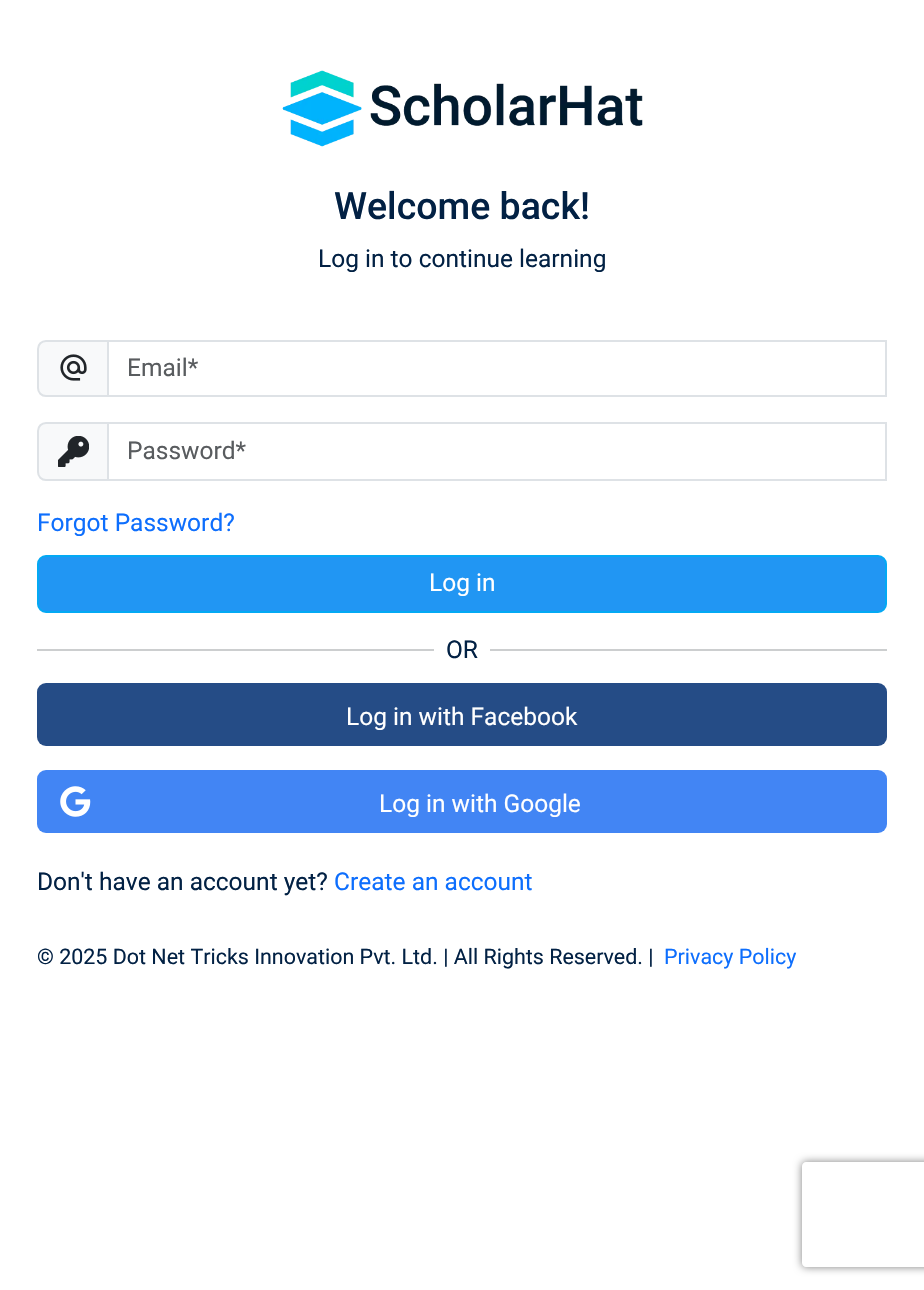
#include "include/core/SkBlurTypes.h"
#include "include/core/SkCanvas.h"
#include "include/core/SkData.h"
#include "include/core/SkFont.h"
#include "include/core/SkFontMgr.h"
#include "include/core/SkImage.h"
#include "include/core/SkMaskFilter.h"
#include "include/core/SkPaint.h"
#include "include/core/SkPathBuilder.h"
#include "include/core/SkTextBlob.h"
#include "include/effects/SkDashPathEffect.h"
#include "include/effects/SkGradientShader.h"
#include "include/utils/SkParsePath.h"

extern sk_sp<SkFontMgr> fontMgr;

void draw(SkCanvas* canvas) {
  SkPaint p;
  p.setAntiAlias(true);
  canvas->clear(SK_ColorWHITE);
  canvas->drawImageRect(SkImages::DeferredFromEncodedData(SkData::MakeFromFileName("images/1.png")), SkRect::MakeLTRB(282, 70, 643, 147), SkSamplingOptions());
  p.setColor(SkColorSetRGB(248, 249, 250));
  canvas->drawPath(SkPathBuilder().moveTo(46, 341).lineTo(108, 341).lineTo(108, 396).lineTo(46, 396).cubicTo(41.5f, 396, 38, 392.5f, 38, 388).lineTo(38, 349).cubicTo(38, 344.5f, 41.5f, 341, 46, 341).close().detach(), p);
  p.setStyle(SkPaint::kStroke_Style);
  p.setStrokeWidth(2);
  p.setColor(SkColorSetRGB(222, 226, 230));
  canvas->drawPath(SkPathBuilder().moveTo(46, 341).lineTo(108, 341).lineTo(108, 396).lineTo(46, 396).cubicTo(41.5f, 396, 38, 392.5f, 38, 388).lineTo(38, 349).cubicTo(38, 344.5f, 41.5f, 341, 46, 341).close().detach(), p);
  canvas->drawImageRect(SkImages::DeferredFromEncodedData(SkData::MakeFromFileName("images/2.png")), SkRect::MakeLTRB(60, 354, 87, 381), SkSamplingOptions());
  canvas->drawRect(SkRect::MakeLTRB(108, 341, 886, 396), p);
  p.setStyle(SkPaint::kFill_Style);
  p.setColor(SkColorSetRGB(248, 249, 250));
  canvas->drawPath(SkPathBuilder().moveTo(46, 423).lineTo(108, 423).lineTo(108, 480).lineTo(46, 480).cubicTo(41.5f, 480, 38, 476.5f, 38, 472).lineTo(38, 431).cubicTo(38, 426.5f, 41.5f, 423, 46, 423).close().detach(), p);
  p.setStyle(SkPaint::kStroke_Style);
  p.setColor(SkColorSetRGB(222, 226, 230));
  canvas->drawPath(SkPathBuilder().moveTo(46, 423).lineTo(108, 423).lineTo(108, 480).lineTo(46, 480).cubicTo(41.5f, 480, 38, 476.5f, 38, 472).lineTo(38, 431).cubicTo(38, 426.5f, 41.5f, 423, 46, 423).close().detach(), p);
  canvas->drawImageRect(SkImages::DeferredFromEncodedData(SkData::MakeFromFileName("images/3.png")), SkRect::MakeLTRB(58, 436, 89, 467), SkSamplingOptions());
  canvas->drawRect(SkRect::MakeLTRB(108, 423, 886, 480), p);
  p.setStyle(SkPaint::kFill_Style);
  p.setColor(SkColorSetRGB(33, 150, 243));
  canvas->drawRoundRect(SkRect::MakeLTRB(38, 556, 886, 612), 8, 8, p);
  p.setStyle(SkPaint::kStroke_Style);
  p.setColor(SkColorSetRGB(3, 169, 244));
  canvas->drawRoundRect(SkRect::MakeLTRB(38, 556, 886, 612), 8, 8, p);
  canvas->save();
  canvas->clipPath(SkPathBuilder(SkPathFillType::kEvenOdd).moveTo(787, 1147).lineTo(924, 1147).lineTo(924, 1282).lineTo(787, 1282).close().moveTo(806, 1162).lineTo(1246, 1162).cubicTo(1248, 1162, 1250, 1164, 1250, 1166).lineTo(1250, 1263).cubicTo(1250, 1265, 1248, 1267, 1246, 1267).lineTo(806, 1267).cubicTo(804, 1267, 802, 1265, 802, 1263).lineTo(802, 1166).cubicTo(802, 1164, 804, 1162, 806, 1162).close().detach(), true);
  p.setStyle(SkPaint::kFill_Style);
  p.setColor(SkColorSetRGB(128, 128, 128));
  p.setMaskFilter(SkMaskFilter::MakeBlur(kNormal_SkBlurStyle, 4.5f));
  canvas->drawRoundRect(SkRect::MakeLTRB(802, 1162, 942, 1267), 4, 4, p);
  p.setMaskFilter(nullptr);
  canvas->restore();
  p.setColor(SkColorSetRGB(204, 206, 207));
  canvas->drawRect(SkRect::MakeLTRB(37, 649, 434, 651), p);
  canvas->drawRect(SkRect::MakeLTRB(490, 649, 887, 651), p);
  p.setColor(SkColorSetRGB(37, 76, 134));
  canvas->drawRoundRect(SkRect::MakeLTRB(37, 683, 887, 746), 9, 9, p);
  p.setColor(SkColorSetRGB(66, 133, 244));
  canvas->drawRoundRect(SkRect::MakeLTRB(37, 770, 887, 833), 9, 9, p);
  canvas->drawImageRect(SkImages::DeferredFromEncodedData(SkData::MakeFromFileName("images/4.png")), SkRect::MakeLTRB(60, 786, 91, 817), SkSamplingOptions());
  SkFont font1(fontMgr->matchFamilyStyle("Roboto", SkFontStyle(500, SkFontStyle::kNormal_Width, SkFontStyle::kUpright_Slant)), 37.5f);
  font1.setSubpixel(true);
  p.setColor(SkColorSetRGB(2, 33, 68));
  canvas->drawString("Welcome back!", 334, 219, font1, p);
  SkFont font2(fontMgr->matchFamilyStyle("Roboto", SkFontStyle::Normal()), 24.5f);
  font2.setSubpixel(true);
  canvas->drawString("Log in to continue learning", 318, 267, font2, p);
  p.setColor(SkColorSetRGB(89, 92, 95));
  canvas->drawString("Email*", 127, 376, font2, p);
  canvas->drawString("Password*", 127, 459, font2, p);
  p.setColor(SkColorSetRGB(13, 110, 253));
  canvas->drawString("Forgot Password?", 37, 531, font2, p);
  p.setColor(SK_ColorWHITE);
  canvas->drawString("Log in", 429, 591, font2, p);
  p.setColor(SkColorSetRGB(2, 33, 68));
  canvas->drawString("OR", 446, 658, font2, p);
  p.setColor(SK_ColorWHITE);
  canvas->drawString("Log in with Facebook", 346, 725, font2, p);
  canvas->drawString("Log in with Google", 379, 812, font2, p);
  p.setColor(SkColorSetRGB(2, 33, 68));
  canvas->drawString("Don't have an account yet?", 37, 890, font2, p);
  p.setColor(SkColorSetRGB(13, 110, 253));
  canvas->drawString("Create an account", 334, 890, font2, p);
  SkFont font3(fontMgr->matchFamilyStyle("Roboto", SkFontStyle::Normal()), 21.45f);
  font3.setSubpixel(true);
  p.setColor(SkColorSetRGB(2, 33, 68));
  canvas->drawString("© 2025 Dot Net Tricks Innovation Pvt. Ltd. | All Rights Reserved. |", 37, 964, font3, p);
  p.setColor(SkColorSetRGB(13, 110, 253));
  canvas->drawString("Privacy Policy", 664, 964, font3, p);
}
